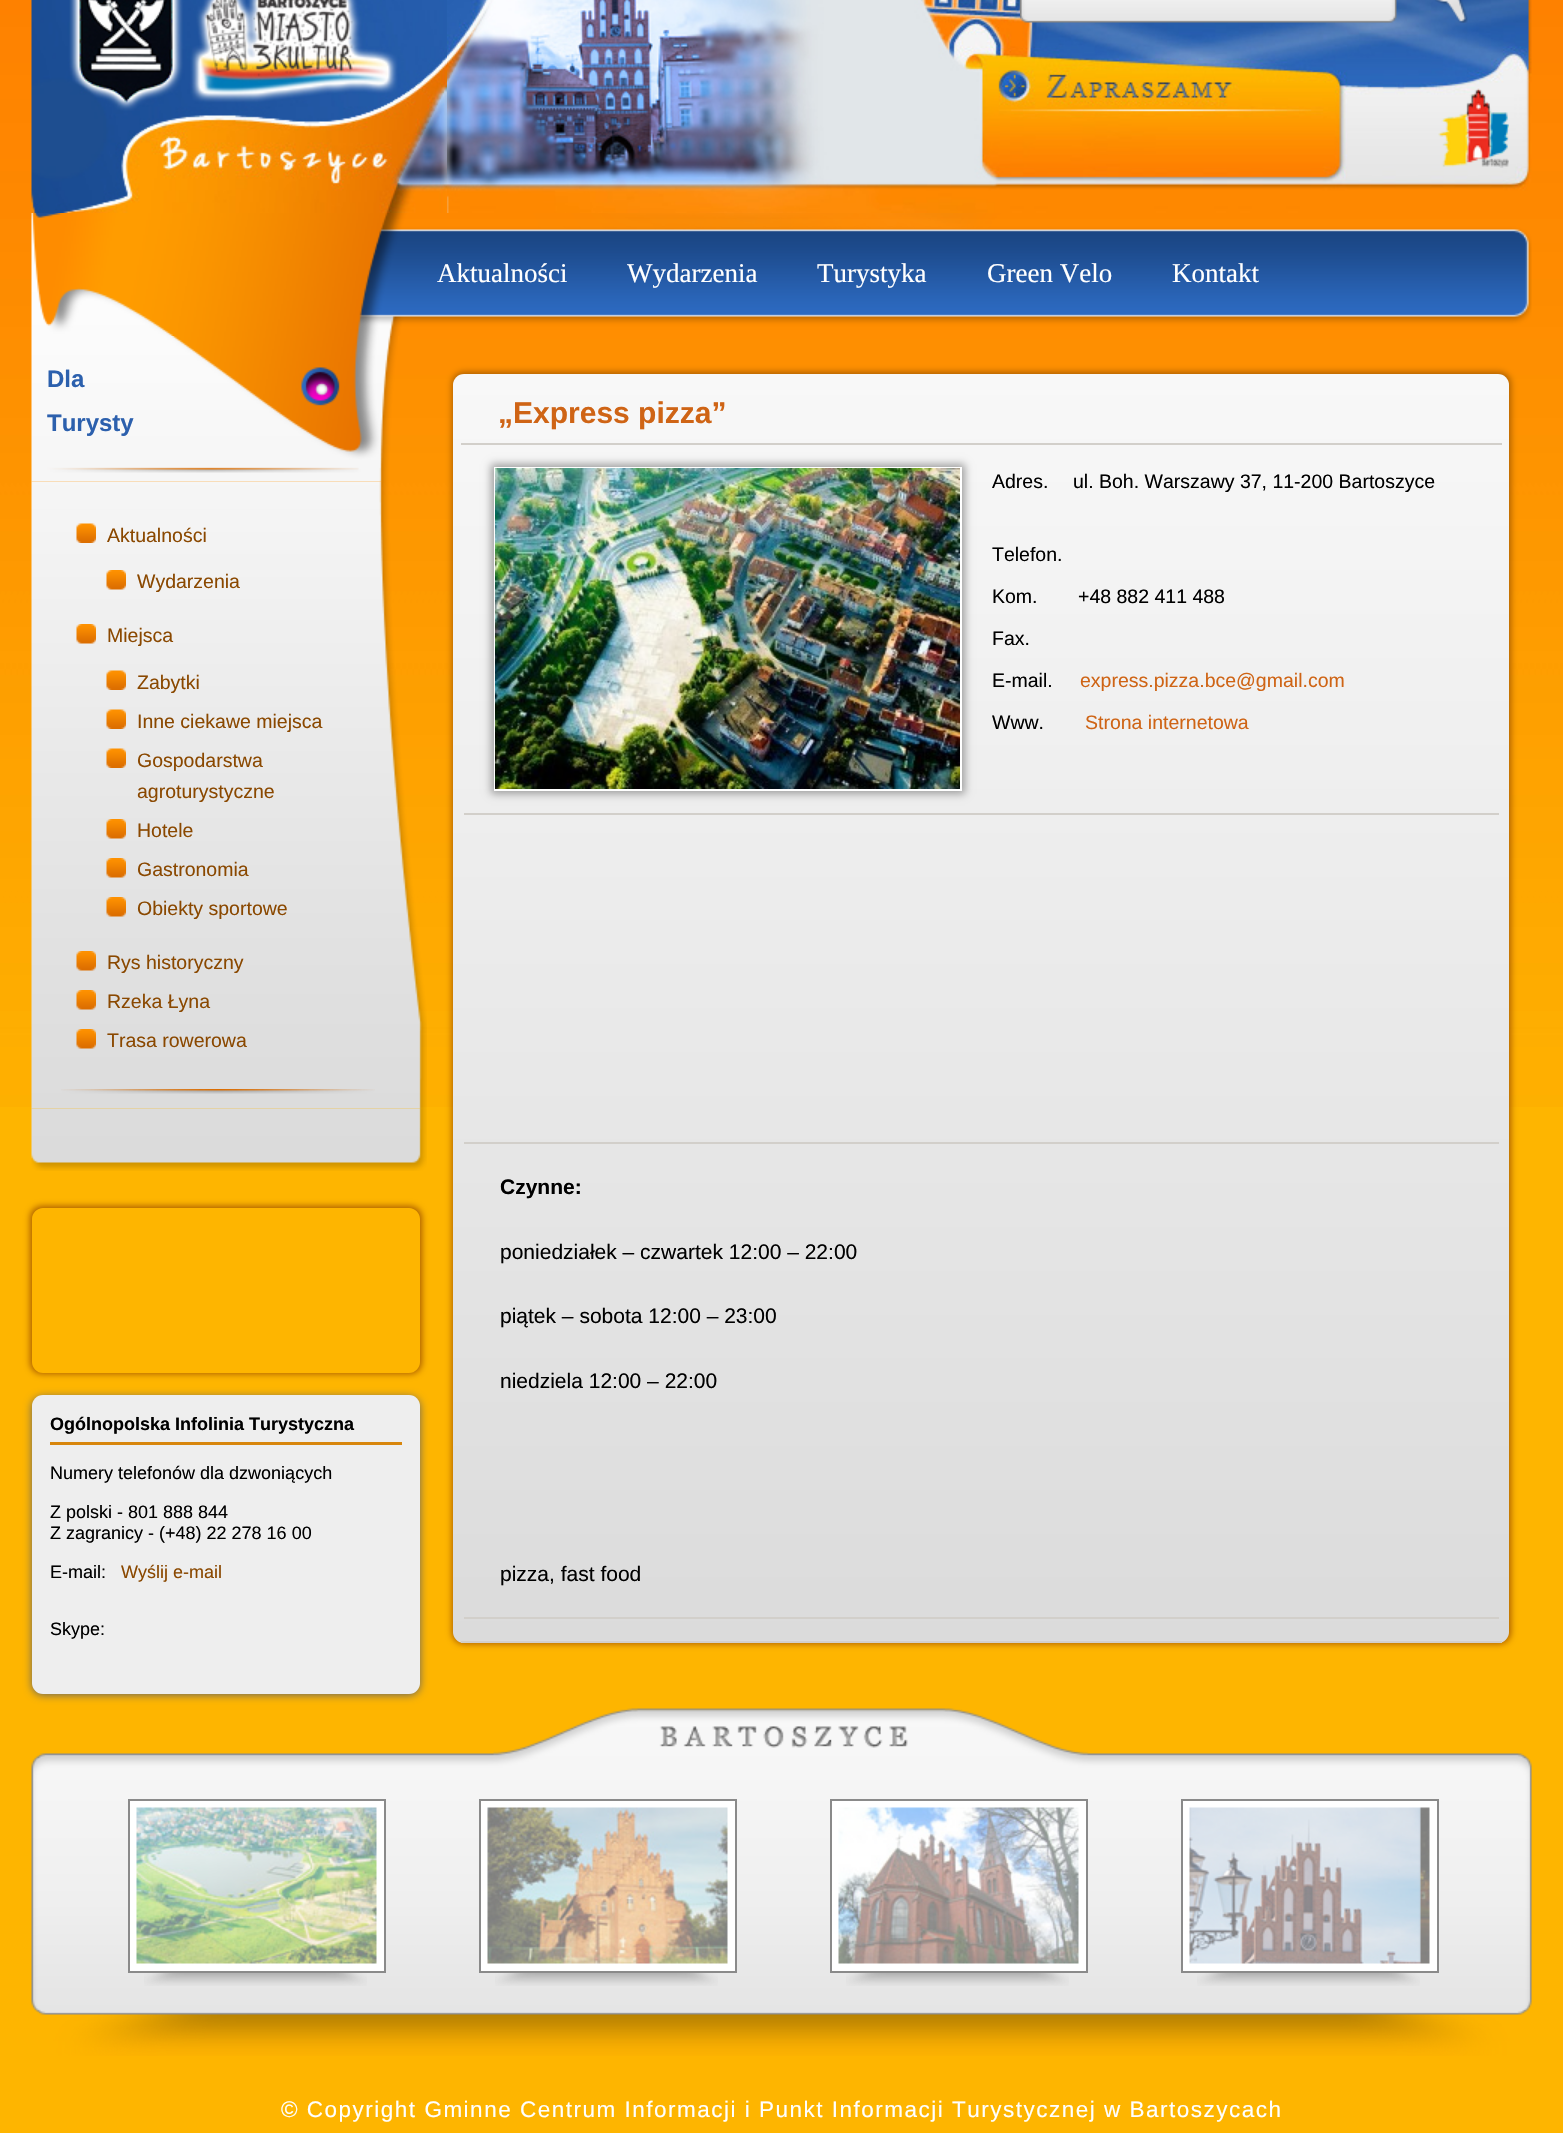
#include "include/core/SkBlurTypes.h"
#include "include/core/SkCanvas.h"
#include "include/core/SkData.h"
#include "include/core/SkFont.h"
#include "include/core/SkFontMgr.h"
#include "include/core/SkImage.h"
#include "include/core/SkMaskFilter.h"
#include "include/core/SkPaint.h"
#include "include/core/SkPathBuilder.h"
#include "include/core/SkTextBlob.h"
#include "include/effects/SkDashPathEffect.h"
#include "include/effects/SkGradientShader.h"
#include "include/utils/SkParsePath.h"

extern sk_sp<SkFontMgr> fontMgr;

void draw(SkCanvas* canvas) {
  SkPaint p;
  p.setAntiAlias(true);
  auto spacedText = [&](const char* s, float x, float y, const SkFont& font, const SkPaint& ink, float letter, float word) {
    std::vector<SkGlyphID> glyphs(font.countText(s, strlen(s), SkTextEncoding::kUTF8));
    std::vector<float> xs(glyphs.size());
    font.textToGlyphs(s, strlen(s), SkTextEncoding::kUTF8, glyphs);
    font.getXPos(glyphs, xs, x);
    float extra = 0;
    for (size_t i = 0; i < glyphs.size(); i++) {
      xs[i] += extra;
      extra += letter + word * (glyphs[i] == font.unicharToGlyph(' '));
    }
    canvas->drawTextBlob(SkTextBlob::MakeFromPosHGlyphs(glyphs, xs, y, font), 0, 0, ink);
  };
  canvas->clear(SkColorSetRGB(254, 181, 0));
  canvas->drawImageRect(SkImages::DeferredFromEncodedData(SkData::MakeFromFileName("images/1.png")), SkRect::MakeLTRB(0, 0, 1563, 1107), SkSamplingOptions());
  canvas->drawImageRect(SkImages::DeferredFromEncodedData(SkData::MakeFromFileName("images/2.png")), SkRect::MakeLTRB(31, 0, 447, 213), SkSamplingOptions());
  canvas->drawImageRect(SkImages::DeferredFromEncodedData(SkData::MakeFromFileName("images/3.png")), SkRect::MakeLTRB(447, 0, 1532, 213), SkSamplingOptions());
  canvas->drawImageRect(SkImages::DeferredFromEncodedData(SkData::MakeFromFileName("images/4.png")), SkRect::MakeLTRB(1020, 0, 1397, 23), SkSamplingOptions());
  canvas->drawImageRect(SkImages::DeferredFromEncodedData(SkData::MakeFromFileName("images/5.png")), SkRect::MakeLTRB(1435, 0, 1468, 23), SkSamplingOptions());
  canvas->drawImageRect(SkImages::DeferredFromEncodedData(SkData::MakeFromFileName("images/6.png")), SkRect::MakeLTRB(1438, 88, 1509, 168), SkSamplingOptions());
  canvas->drawImageRect(SkImages::DeferredFromEncodedData(SkData::MakeFromFileName("images/7.png")), SkRect::MakeLTRB(31, 213, 1532, 336), SkSamplingOptions());
  canvas->drawImageRect(SkImages::DeferredFromEncodedData(SkData::MakeFromFileName("images/8.png")), SkRect::MakeLTRB(31, 336, 398, 482), SkSamplingOptions());
  canvas->drawImageRect(SkImages::DeferredFromEncodedData(SkData::MakeFromFileName("images/23.png")), SkRect::MakeLTRB(31, 1108, 427, 1171), SkSamplingOptions());
  canvas->drawImageRect(SkImages::DeferredFromEncodedData(SkData::MakeFromFileName("images/9.png")), SkRect::MakeLTRB(31, 481, 427, 1109), SkSamplingOptions());
  canvas->drawImageRect(SkImages::DeferredFromEncodedData(SkData::MakeFromFileName("images/10.png")), SkRect::MakeLTRB(61, 1089, 375, 1094), SkSamplingOptions());
  canvas->drawImageRect(SkImages::DeferredFromEncodedData(SkData::MakeFromFileName("images/11.png")), SkRect::MakeLTRB(76, 523, 96, 543), SkSamplingOptions());
  canvas->drawImageRect(SkImages::DeferredFromEncodedData(SkData::MakeFromFileName("images/12.png")), SkRect::MakeLTRB(106, 570, 126, 590), SkSamplingOptions());
  canvas->drawImageRect(SkImages::DeferredFromEncodedData(SkData::MakeFromFileName("images/13.png")), SkRect::MakeLTRB(76, 624, 96, 644), SkSamplingOptions());
  canvas->drawImageRect(SkImages::DeferredFromEncodedData(SkData::MakeFromFileName("images/14.png")), SkRect::MakeLTRB(106, 670, 126, 690), SkSamplingOptions());
  canvas->drawImageRect(SkImages::DeferredFromEncodedData(SkData::MakeFromFileName("images/15.png")), SkRect::MakeLTRB(106, 709, 126, 729), SkSamplingOptions());
  canvas->drawImageRect(SkImages::DeferredFromEncodedData(SkData::MakeFromFileName("images/16.png")), SkRect::MakeLTRB(106, 748, 126, 768), SkSamplingOptions());
  canvas->drawImageRect(SkImages::DeferredFromEncodedData(SkData::MakeFromFileName("images/17.png")), SkRect::MakeLTRB(106, 819, 126, 839), SkSamplingOptions());
  canvas->drawImageRect(SkImages::DeferredFromEncodedData(SkData::MakeFromFileName("images/18.png")), SkRect::MakeLTRB(106, 858, 126, 878), SkSamplingOptions());
  canvas->drawImageRect(SkImages::DeferredFromEncodedData(SkData::MakeFromFileName("images/19.png")), SkRect::MakeLTRB(106, 897, 126, 917), SkSamplingOptions());
  canvas->drawImageRect(SkImages::DeferredFromEncodedData(SkData::MakeFromFileName("images/20.png")), SkRect::MakeLTRB(76, 951, 96, 971), SkSamplingOptions());
  canvas->drawImageRect(SkImages::DeferredFromEncodedData(SkData::MakeFromFileName("images/21.png")), SkRect::MakeLTRB(76, 990, 96, 1010), SkSamplingOptions());
  canvas->drawImageRect(SkImages::DeferredFromEncodedData(SkData::MakeFromFileName("images/22.png")), SkRect::MakeLTRB(76, 1029, 96, 1049), SkSamplingOptions());
  canvas->save();
  canvas->clipPath(SkPathBuilder(SkPathFillType::kEvenOdd).moveTo(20, 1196).lineTo(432, 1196).lineTo(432, 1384).lineTo(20, 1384).close().moveTo(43, 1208).lineTo(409, 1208).cubicTo(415, 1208, 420, 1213, 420, 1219).lineTo(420, 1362).cubicTo(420, 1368, 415, 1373, 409, 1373).lineTo(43, 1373).cubicTo(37, 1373, 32, 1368, 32, 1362).lineTo(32, 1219).cubicTo(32, 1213, 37, 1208, 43, 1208).close().detach(), true);
  p.setColor(SkColorSetRGB(172, 95, 0));
  p.setMaskFilter(SkMaskFilter::MakeBlur(kNormal_SkBlurStyle, 3));
  canvas->drawRoundRect(SkRect::MakeLTRB(30, 1206, 422, 1374), 12, 12, p);
  p.setMaskFilter(nullptr);
  canvas->restore();
  p.setColor(SkColorSetRGB(100, 100, 100));
  p.setMaskFilter(SkMaskFilter::MakeBlur(kNormal_SkBlurStyle, 4));
  canvas->drawRoundRect(SkRect::MakeLTRB(32, 1397, 420, 1695), 11, 11, p);
  p.setMaskFilter(nullptr);
  p.setColor(SkColorSetRGB(238, 238, 238));
  canvas->drawRoundRect(SkRect::MakeLTRB(32, 1395, 420, 1694), 11, 11, p);
  p.setColor(SkColorSetRGB(216, 134, 12));
  canvas->drawRect(SkRect::MakeLTRB(50, 1442, 402, 1445), p);
  p.setColor(SkColorSetRGB(172, 95, 0));
  p.setMaskFilter(SkMaskFilter::MakeBlur(kNormal_SkBlurStyle, 3));
  canvas->drawRoundRect(SkRect::MakeLTRB(452, 372, 1511, 1644), 12, 12, p);
  p.setMaskFilter(nullptr);
  {
    const SkColor colors[] = {SkColorSetRGB(248, 248, 248), SkColorSetRGB(219, 219, 219)};
    const float stops[] = {0, 1};
    const SkPoint ends[] = {{981, 373}, {981, 1643}};
    p.setShader(SkGradientShader::MakeLinear(ends, colors, stops, 2, SkTileMode::kClamp));
    p.setAlpha(255);
  }
  canvas->drawRoundRect(SkRect::MakeLTRB(453, 374, 1509, 1643), 11, 11, p);
  p.setShader(nullptr);
  p.setColor(SkColorSetRGB(210, 207, 202));
  canvas->drawRect(SkRect::MakeLTRB(461, 443, 1502, 445), p);
  p.setColor(SkColorSetRGB(159, 159, 159));
  p.setMaskFilter(SkMaskFilter::MakeBlur(kNormal_SkBlurStyle, 4));
  canvas->drawRect(SkRect::MakeLTRB(491, 464, 965, 794), p);
  p.setMaskFilter(nullptr);
  p.setStyle(SkPaint::kStroke_Style);
  p.setStrokeWidth(2);
  p.setColor(SK_ColorWHITE);
  canvas->drawRect(SkRect::MakeLTRB(495, 468, 961, 790), p);
  canvas->drawImageRect(SkImages::DeferredFromEncodedData(SkData::MakeFromFileName("images/24.png")), SkRect::MakeLTRB(495, 468, 960, 789), SkSamplingOptions());
  p.setStyle(SkPaint::kFill_Style);
  p.setColor(SkColorSetRGB(210, 207, 202));
  canvas->drawRect(SkRect::MakeLTRB(464, 813, 1499, 815), p);
  canvas->drawRect(SkRect::MakeLTRB(464, 1142, 1499, 1144), p);
  canvas->drawRect(SkRect::MakeLTRB(464, 1617, 1499, 1619), p);
  canvas->drawRect(SkRect::MakeLTRB(461, 1641, 1502, 1643), p);
  canvas->drawImageRect(SkImages::DeferredFromEncodedData(SkData::MakeFromFileName("images/25.png")), SkRect::MakeLTRB(31, 1708, 1532, 2056), SkSamplingOptions());
  canvas->drawImageRect(SkImages::DeferredFromEncodedData(SkData::MakeFromFileName("images/26.png")), SkRect::MakeLTRB(144, 1973, 367, 1986), SkSamplingOptions());
  p.setColor(SK_ColorWHITE);
  canvas->drawRect(SkRect::MakeLTRB(129, 1800, 385, 1972), p);
  p.setStyle(SkPaint::kStroke_Style);
  p.setColor(SkColorSetRGB(138, 138, 138));
  canvas->drawRect(SkRect::MakeLTRB(129, 1800, 385, 1972), p);
  canvas->drawImageRect(SkImages::DeferredFromEncodedData(SkData::MakeFromFileName("images/27.png")), SkRect::MakeLTRB(136, 1807, 377, 1964), SkSamplingOptions());
  canvas->drawImageRect(SkImages::DeferredFromEncodedData(SkData::MakeFromFileName("images/26.png")), SkRect::MakeLTRB(495, 1973, 718, 1986), SkSamplingOptions());
  p.setStyle(SkPaint::kFill_Style);
  p.setColor(SK_ColorWHITE);
  canvas->drawRect(SkRect::MakeLTRB(480, 1800, 736, 1972), p);
  p.setStyle(SkPaint::kStroke_Style);
  p.setColor(SkColorSetRGB(138, 138, 138));
  canvas->drawRect(SkRect::MakeLTRB(480, 1800, 736, 1972), p);
  canvas->drawImageRect(SkImages::DeferredFromEncodedData(SkData::MakeFromFileName("images/28.png")), SkRect::MakeLTRB(487, 1807, 728, 1964), SkSamplingOptions());
  canvas->drawImageRect(SkImages::DeferredFromEncodedData(SkData::MakeFromFileName("images/26.png")), SkRect::MakeLTRB(846, 1973, 1069, 1986), SkSamplingOptions());
  p.setStyle(SkPaint::kFill_Style);
  p.setColor(SK_ColorWHITE);
  canvas->drawRect(SkRect::MakeLTRB(831, 1800, 1087, 1972), p);
  p.setStyle(SkPaint::kStroke_Style);
  p.setColor(SkColorSetRGB(138, 138, 138));
  canvas->drawRect(SkRect::MakeLTRB(831, 1800, 1087, 1972), p);
  canvas->drawImageRect(SkImages::DeferredFromEncodedData(SkData::MakeFromFileName("images/29.png")), SkRect::MakeLTRB(838, 1807, 1079, 1964), SkSamplingOptions());
  canvas->drawImageRect(SkImages::DeferredFromEncodedData(SkData::MakeFromFileName("images/30.png")), SkRect::MakeLTRB(1197, 1973, 1420, 1986), SkSamplingOptions());
  p.setStyle(SkPaint::kFill_Style);
  p.setColor(SK_ColorWHITE);
  canvas->drawRect(SkRect::MakeLTRB(1182, 1800, 1438, 1972), p);
  p.setStyle(SkPaint::kStroke_Style);
  p.setColor(SkColorSetRGB(138, 138, 138));
  canvas->drawRect(SkRect::MakeLTRB(1182, 1800, 1438, 1972), p);
  canvas->drawImageRect(SkImages::DeferredFromEncodedData(SkData::MakeFromFileName("images/31.png")), SkRect::MakeLTRB(1189, 1807, 1430, 1964), SkSamplingOptions());
  SkFont font1(fontMgr->matchFamilyStyle("Liberation Serif", SkFontStyle::Normal()), 27);
  font1.setSubpixel(true);
  p.setStyle(SkPaint::kFill_Style);
  p.setColor(SK_ColorWHITE);
  canvas->drawString("Aktualności", 437, 282, font1, p);
  canvas->drawString("Wydarzenia", 627, 282, font1, p);
  canvas->drawString("Turystyka", 817, 282, font1, p);
  canvas->drawString("Green Velo", 987, 282, font1, p);
  canvas->drawString("Kontakt", 1172, 282, font1, p);
  SkFont font2(fontMgr->matchFamilyStyle("Liberation Sans", SkFontStyle::Bold()), 24);
  font2.setSubpixel(true);
  p.setColor(SkColorSetRGB(44, 96, 173));
  canvas->drawString("Dla", 47, 387, font2, p);
  canvas->drawString("Turysty", 47, 431, font2, p);
  SkFont font3(fontMgr->matchFamilyStyle("Liberation Sans", SkFontStyle::Normal()), 19.5f);
  font3.setSubpixel(true);
  p.setColor(SkColorSetRGB(138, 72, 0));
  canvas->drawString("Aktualności", 107, 542, font3, p);
  canvas->drawString("Wydarzenia", 137, 588, font3, p);
  canvas->drawString("Miejsca", 107, 642, font3, p);
  canvas->drawString("Zabytki", 137, 689, font3, p);
  canvas->drawString("Inne ciekawe miejsca", 137, 728, font3, p);
  canvas->drawString("Gospodarstwa", 137, 767, font3, p);
  canvas->drawString("agroturystyczne", 137, 798, font3, p);
  canvas->drawString("Hotele", 137, 837, font3, p);
  canvas->drawString("Gastronomia", 137, 876, font3, p);
  canvas->drawString("Obiekty sportowe", 137, 915, font3, p);
  canvas->drawString("Rys historyczny", 107, 969, font3, p);
  canvas->drawString("Rzeka Łyna", 107, 1008, font3, p);
  canvas->drawString("Trasa rowerowa", 107, 1047, font3, p);
  SkFont font4(fontMgr->matchFamilyStyle("Liberation Sans", SkFontStyle::Bold()), 18);
  font4.setSubpixel(true);
  p.setColor(SK_ColorBLACK);
  canvas->drawString("Ogólnopolska Infolinia Turystyczna", 50, 1430, font4, p);
  SkFont font5(fontMgr->matchFamilyStyle("Liberation Sans", SkFontStyle::Normal()), 18);
  font5.setSubpixel(true);
  canvas->drawString("Numery telefonów dla dzwoniących", 50, 1479, font5, p);
  canvas->drawString("Z polski - 801 888 844", 50, 1518, font5, p);
  canvas->drawString("Z zagranicy - (+48) 22 278 16 00", 50, 1539, font5, p);
  canvas->drawString("E-mail:", 50, 1578, font5, p);
  p.setColor(SkColorSetRGB(138, 72, 0));
  canvas->drawString("Wyślij e-mail", 121, 1578, font5, p);
  p.setColor(SK_ColorBLACK);
  canvas->drawString("Skype:", 50, 1635, font5, p);
  SkFont font6(fontMgr->matchFamilyStyle("Liberation Sans", SkFontStyle::Bold()), 30);
  font6.setSubpixel(true);
  p.setColor(SkColorSetRGB(207, 100, 21));
  canvas->drawString("„Express pizza”", 498, 423, font6, p);
  p.setColor(SK_ColorBLACK);
  canvas->drawString("Adres.", 992, 488, font3, p);
  canvas->drawString("ul. Boh. Warszawy 37, 11-200 Bartoszyce", 1073, 488, font3, p);
  canvas->drawString("Telefon.", 992, 561, font3, p);
  canvas->drawString("Kom.", 992, 603, font3, p);
  canvas->drawString("+48 882 411 488", 1078, 603, font3, p);
  canvas->drawString("Fax.", 992, 645, font3, p);
  canvas->drawString("E-mail.", 992, 687, font3, p);
  p.setColor(SkColorSetRGB(207, 100, 21));
  canvas->drawString("express.pizza.bce@gmail.com", 1080, 687, font3, p);
  p.setColor(SK_ColorBLACK);
  canvas->drawString("Www.", 992, 729, font3, p);
  p.setColor(SkColorSetRGB(207, 100, 21));
  canvas->drawString("Strona internetowa", 1085, 729, font3, p);
  SkFont font7(fontMgr->matchFamilyStyle("Liberation Sans", SkFontStyle::Bold()), 21);
  font7.setSubpixel(true);
  p.setColor(SK_ColorBLACK);
  canvas->drawString("Czynne:", 500, 1194, font7, p);
  SkFont font8(fontMgr->matchFamilyStyle("Liberation Sans", SkFontStyle::Normal()), 21);
  font8.setSubpixel(true);
  canvas->drawString("poniedziałek – czwartek 12:00 – 22:00", 500, 1259, font8, p);
  canvas->drawString("piątek – sobota 12:00 – 23:00", 500, 1323, font8, p);
  canvas->drawString("niedziela 12:00 – 22:00", 500, 1388, font8, p);
  canvas->drawString("pizza, fast food", 500, 1581, font8, p);
  SkFont font9(fontMgr->matchFamilyStyle("Liberation Sans", SkFontStyle::Normal()), 22.5f);
  font9.setSubpixel(true);
  p.setColor(SK_ColorWHITE);
  spacedText("© Copyright Gminne Centrum Informacji i Punkt Informacji Turystycznej w Bartoszycach", 281, 2117, font9, p, 1.5f, 0);
}
